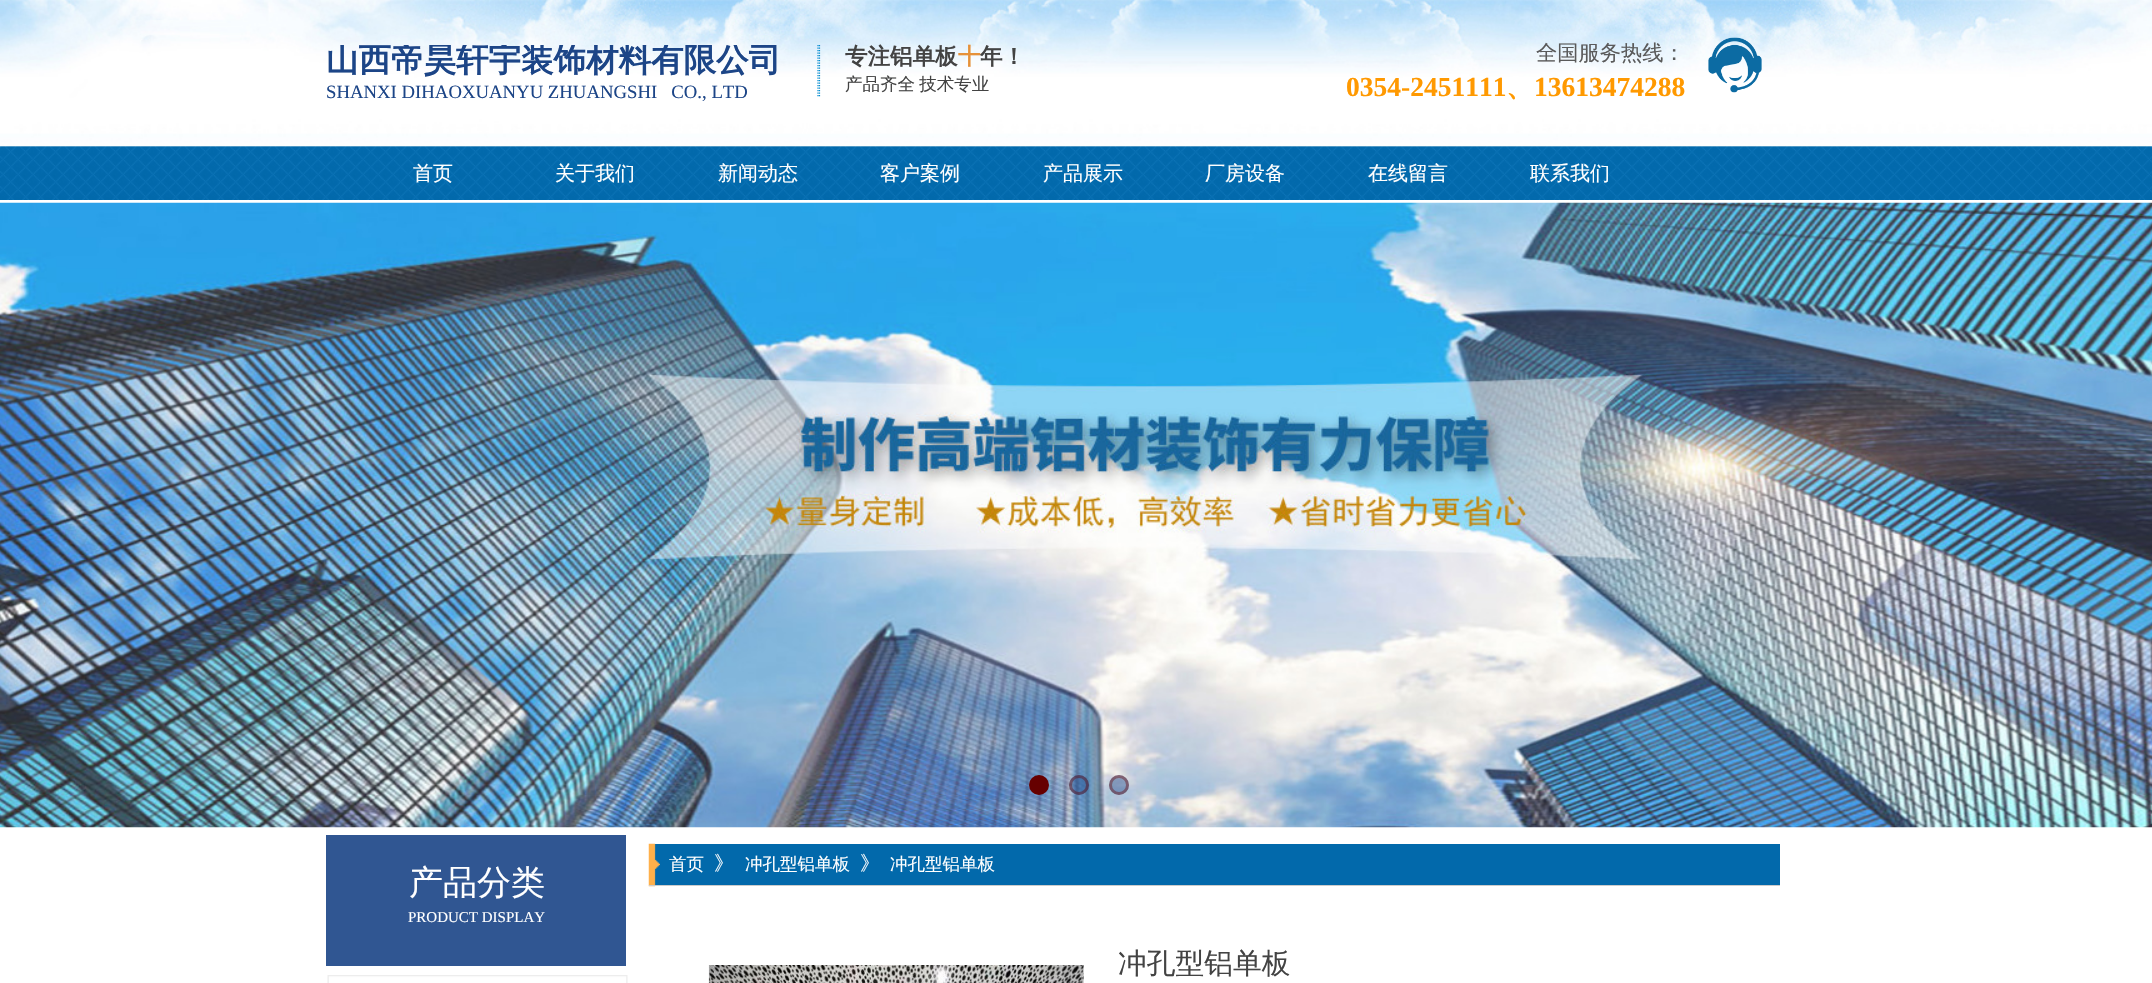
#include "include/core/SkBlurTypes.h"
#include "include/core/SkCanvas.h"
#include "include/core/SkData.h"
#include "include/core/SkFont.h"
#include "include/core/SkFontMgr.h"
#include "include/core/SkImage.h"
#include "include/core/SkMaskFilter.h"
#include "include/core/SkPaint.h"
#include "include/core/SkPathBuilder.h"
#include "include/core/SkTextBlob.h"
#include "include/effects/SkDashPathEffect.h"
#include "include/effects/SkGradientShader.h"
#include "include/utils/SkParsePath.h"

extern sk_sp<SkFontMgr> fontMgr;

void draw(SkCanvas* canvas) {
  SkPaint p;
  p.setAntiAlias(true);
  auto spacedText = [&](const char* s, float x, float y, const SkFont& font, const SkPaint& ink, float letter, float word) {
    std::vector<SkGlyphID> glyphs(font.countText(s, strlen(s), SkTextEncoding::kUTF8));
    std::vector<float> xs(glyphs.size());
    font.textToGlyphs(s, strlen(s), SkTextEncoding::kUTF8, glyphs);
    font.getXPos(glyphs, xs, x);
    float extra = 0;
    for (size_t i = 0; i < glyphs.size(); i++) {
      xs[i] += extra;
      extra += letter + word * (glyphs[i] == font.unicharToGlyph(' '));
    }
    canvas->drawTextBlob(SkTextBlob::MakeFromPosHGlyphs(glyphs, xs, y, font), 0, 0, ink);
  };
  canvas->clear(SK_ColorWHITE);
  canvas->drawImageRect(SkImages::DeferredFromEncodedData(SkData::MakeFromFileName("images/1.png")), SkRect::MakeLTRB(0, 0, 2152, 200), SkSamplingOptions());
  p.setStyle(SkPaint::kStroke_Style);
  p.setStrokeWidth(1.2f);
  p.setColor(SkColorSetRGB(2, 139, 207));
  p.setPathEffect(SkDashPathEffect::Make({{1.25f, 1.25f}}, 0));
  canvas->drawPath(SkPathBuilder().moveTo(819.5f, 45).lineTo(819.5f, 97.5f).moveTo(818, 45).lineTo(818, 97.5f).detach(), p);
  p.setPathEffect(nullptr);
  canvas->drawImageRect(SkImages::DeferredFromEncodedData(SkData::MakeFromFileName("images/2.png")), SkRect::MakeLTRB(1708, 37, 1762, 93), SkSamplingOptions());
  canvas->drawImageRect(SkImages::DeferredFromEncodedData(SkData::MakeFromFileName("images/3.png")), SkRect::MakeLTRB(0, 202, 2152, 828), SkSamplingOptions());
  p.setStyle(SkPaint::kFill_Style);
  p.setColor(SkColorSetRGB(102, 0, 0));
  canvas->drawCircle(1039, 785, 8.5f, p);
  p.setStyle(SkPaint::kStroke_Style);
  p.setStrokeWidth(3);
  canvas->drawCircle(1039, 785, 8.5f, p);
  p.setStyle(SkPaint::kFill_Style);
  p.setColor(SkColorSetARGB(102, 28, 69, 135));
  canvas->drawCircle(1079, 785, 10, p);
  p.setStyle(SkPaint::kStroke_Style);
  p.setColor(SkColorSetARGB(102, 102, 0, 0));
  canvas->drawCircle(1079, 785, 8.5f, p);
  p.setStyle(SkPaint::kFill_Style);
  p.setColor(SkColorSetARGB(102, 28, 69, 135));
  canvas->drawCircle(1119, 785, 10, p);
  p.setStyle(SkPaint::kStroke_Style);
  p.setColor(SkColorSetARGB(102, 102, 0, 0));
  canvas->drawCircle(1119, 785, 8.5f, p);
  p.setStyle(SkPaint::kFill_Style);
  p.setColor(SkColorSetRGB(2, 105, 171));
  canvas->drawRect(SkRect::MakeLTRB(654, 844, 1780, 885), p);
  canvas->drawImageRect(SkImages::DeferredFromEncodedData(SkData::MakeFromFileName("images/4.png")), SkRect::MakeLTRB(648, 843, 660, 887), SkSamplingOptions());
  p.setColor(SkColorSetRGB(204, 204, 204));
  canvas->drawRect(SkRect::MakeLTRB(649, 885, 1780, 886), p);
  p.setColor(SkColorSetRGB(48, 86, 146));
  canvas->drawRect(SkRect::MakeLTRB(326, 835, 626, 966), p);
  canvas->drawImageRect(SkImages::DeferredFromEncodedData(SkData::MakeFromFileName("images/5.png")), SkRect::MakeLTRB(708, 965, 1084, 983), SkSamplingOptions());
  canvas->drawImageRect(SkImages::DeferredFromEncodedData(SkData::MakeFromFileName("images/6.png")), SkRect::MakeLTRB(327, 975, 628, 983), SkSamplingOptions());
  canvas->save();
  canvas->clipRect(SkRect::MakeLTRB(326, 45, 820, 111));
  SkFont font1(fontMgr->matchFamilyStyle("WenQuanYi Zen Hei", SkFontStyle::Bold()), 32.5f);
  font1.setSubpixel(true);
  p.setColor(SkColorSetRGB(28, 69, 135));
  canvas->drawString("山西帝昊轩宇装饰材料有限公司", 326, 71, font1, p);
  canvas->restore();
  SkFont font2(fontMgr->matchFamilyStyle("Liberation Serif", SkFontStyle::Normal()), 18.75f);
  font2.setSubpixel(true);
  canvas->drawString("SHANXI DIHAOXUANYU ZHUANGSHI   CO., LTD", 326, 98, font2, p);
  SkFont font3(fontMgr->matchFamilyStyle("WenQuanYi Zen Hei", SkFontStyle::Bold()), 22.5f);
  font3.setSubpixel(true);
  p.setColor(SkColorSetRGB(67, 67, 67));
  canvas->drawString("专注铝单板", 845, 64, font3, p);
  p.setColor(SkColorSetRGB(230, 145, 56));
  canvas->drawString("十", 958, 64, font3, p);
  p.setColor(SkColorSetRGB(67, 67, 67));
  canvas->drawString("年！", 980, 64, font3, p);
  SkFont font4(fontMgr->matchFamilyStyle("WenQuanYi Zen Hei", SkFontStyle(500, SkFontStyle::kNormal_Width, SkFontStyle::kUpright_Slant)), 17.5f);
  font4.setSubpixel(true);
  spacedText("产品齐全 技术专业", 845, 90, font4, p, 0, -1);
  SkFont font5(fontMgr->matchFamilyStyle("WenQuanYi Zen Hei", SkFontStyle(500, SkFontStyle::kNormal_Width, SkFontStyle::kUpright_Slant)), 21.25f);
  font5.setSubpixel(true);
  p.setColor(SkColorSetRGB(90, 90, 90));
  canvas->drawString("全国服务热线：", 1536, 60, font5, p);
  SkFont font6(fontMgr->matchFamilyStyle("Liberation Serif", SkFontStyle::Bold()), 27.5f);
  font6.setSubpixel(true);
  p.setColor(SkColorSetRGB(255, 153, 0));
  canvas->drawString("0354-2451111", 1346, 96, font6, p);
  SkFont font7(fontMgr->matchFamilyStyle("WenQuanYi Zen Hei", SkFontStyle::Bold()), 27.5f);
  font7.setSubpixel(true);
  canvas->drawString("、", 1506, 96, font7, p);
  canvas->drawString("13613474288", 1534, 96, font6, p);
  SkFont font8(fontMgr->matchFamilyStyle("WenQuanYi Zen Hei", SkFontStyle(500, SkFontStyle::kNormal_Width, SkFontStyle::kUpright_Slant)), 20);
  font8.setSubpixel(true);
  p.setColor(SK_ColorWHITE);
  canvas->drawString("首页", 413, 180, font8, p);
  canvas->drawString("关于我们", 555, 180, font8, p);
  canvas->drawString("新闻动态", 718, 180, font8, p);
  canvas->drawString("客户案例", 880, 180, font8, p);
  canvas->drawString("产品展示", 1043, 180, font8, p);
  canvas->drawString("厂房设备", 1205, 180, font8, p);
  canvas->drawString("在线留言", 1368, 180, font8, p);
  canvas->drawString("联系我们", 1530, 180, font8, p);
  canvas->drawString("首页", 669, 870, font4, p);
  canvas->drawString("》", 714, 870, font8, p);
  canvas->drawString("冲孔型铝单板", 745, 870, font4, p);
  canvas->drawString("》", 860, 870, font8, p);
  canvas->drawString("冲孔型铝单板", 890, 870, font4, p);
  SkFont font9(fontMgr->matchFamilyStyle("WenQuanYi Zen Hei", SkFontStyle(500, SkFontStyle::kNormal_Width, SkFontStyle::kUpright_Slant)), 34);
  font9.setSubpixel(true);
  canvas->drawString("产品分类", 409, 894, font9, p);
  SkFont font10(fontMgr->matchFamilyStyle("Liberation Serif", SkFontStyle::Normal()), 15);
  font10.setSubpixel(true);
  canvas->drawString("PRODUCT DISPLAY", 408, 922, font10, p);
  SkFont font11(fontMgr->matchFamilyStyle("WenQuanYi Zen Hei", SkFontStyle(500, SkFontStyle::kNormal_Width, SkFontStyle::kUpright_Slant)), 28.75f);
  font11.setSubpixel(true);
  p.setColor(SkColorSetRGB(67, 67, 67));
  canvas->drawString("冲孔型铝单板", 1118, 973, font11, p);
}
